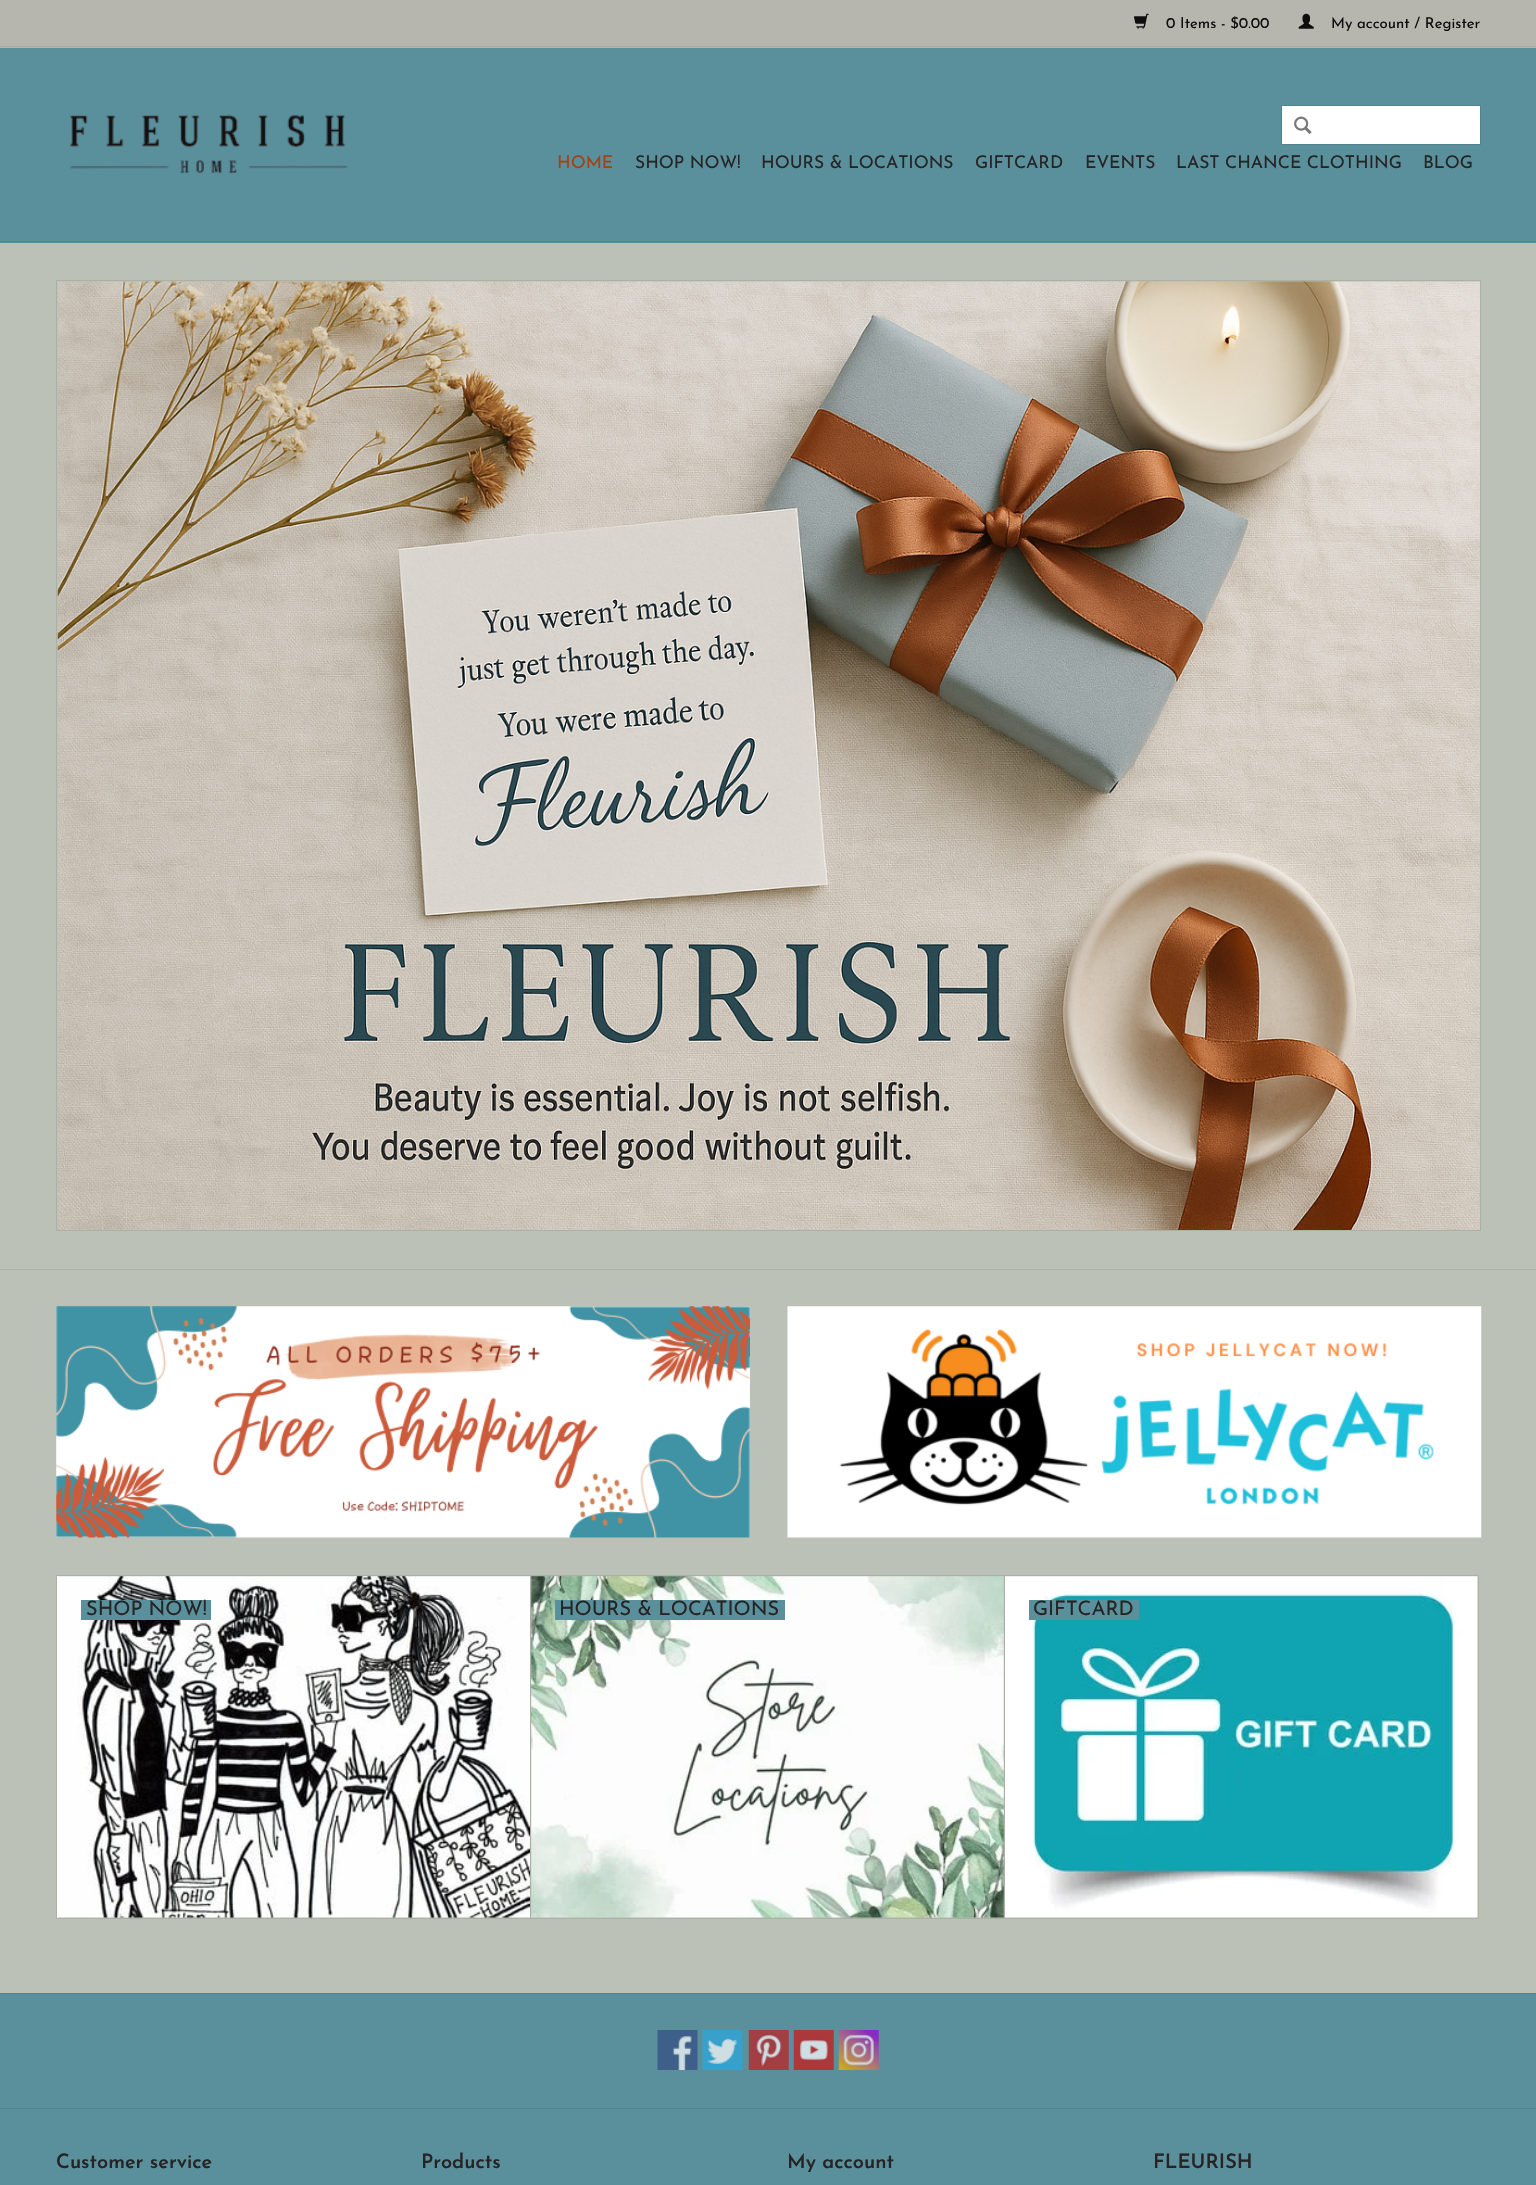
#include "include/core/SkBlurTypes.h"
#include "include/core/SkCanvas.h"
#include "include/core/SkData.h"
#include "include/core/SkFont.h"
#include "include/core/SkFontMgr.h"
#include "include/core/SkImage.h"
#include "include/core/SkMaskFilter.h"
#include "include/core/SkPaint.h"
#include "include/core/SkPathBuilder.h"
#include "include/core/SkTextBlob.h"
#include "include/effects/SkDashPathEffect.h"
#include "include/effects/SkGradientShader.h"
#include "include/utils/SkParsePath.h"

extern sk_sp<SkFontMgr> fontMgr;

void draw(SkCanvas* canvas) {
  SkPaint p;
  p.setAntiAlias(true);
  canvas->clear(SkColorSetRGB(187, 193, 182));
  p.setColor(SkColorSetRGB(90, 143, 156));
  canvas->drawRect(SkRect::MakeLTRB(0, 48, 1536, 243), p);
  p.setColor(SkColorSetRGB(82, 131, 143));
  canvas->drawRect(SkRect::MakeLTRB(0, 241, 1536, 242), p);
  p.setColor(SkColorSetRGB(182, 182, 175));
  canvas->drawRect(SkRect::MakeLTRB(0, 0, 1536, 48), p);
  p.setColor(SkColorSetRGB(169, 169, 162));
  canvas->drawRect(SkRect::MakeLTRB(0, 46, 1536, 47), p);
  canvas->drawImageRect(SkImages::DeferredFromEncodedData(SkData::MakeFromFileName("images/1.png")), SkRect::MakeLTRB(1134, 13, 1149, 29), SkSamplingOptions());
  canvas->drawImageRect(SkImages::DeferredFromEncodedData(SkData::MakeFromFileName("images/2.png")), SkRect::MakeLTRB(1298, 13, 1314, 29), SkSamplingOptions());
  canvas->drawImageRect(SkImages::DeferredFromEncodedData(SkData::MakeFromFileName("images/3.png")), SkRect::MakeLTRB(70, 114, 348, 174), SkSamplingOptions());
  p.setColor(SK_ColorWHITE);
  canvas->drawRect(SkRect::MakeLTRB(1281.5f, 105.5f, 1480.5f, 144.5f), p);
  p.setStyle(SkPaint::kStroke_Style);
  p.setStrokeWidth(1);
  p.setColor(SkColorSetRGB(82, 131, 143));
  canvas->drawRect(SkRect::MakeLTRB(1281.5f, 105.5f, 1480.5f, 144.5f), p);
  canvas->drawImageRect(SkImages::DeferredFromEncodedData(SkData::MakeFromFileName("images/4.png")), SkRect::MakeLTRB(1294, 116, 1312, 134), SkSamplingOptions());
  p.setColor(SkColorSetRGB(172, 177, 167));
  canvas->drawRect(SkRect::MakeLTRB(56.5f, 280.5f, 1480.5f, 1230.5f), p);
  p.setStyle(SkPaint::kFill_Style);
  p.setColor(SkColorSetRGB(181, 187, 176));
  canvas->drawRect(SkRect::MakeLTRB(58, 281, 1480, 282), p);
  canvas->drawImageRect(SkImages::DeferredFromEncodedData(SkData::MakeFromFileName("images/5.png")), SkRect::MakeLTRB(57, 281, 1480, 1230), SkSamplingOptions());
  p.setColor(SkColorSetRGB(172, 177, 167));
  canvas->drawRect(SkRect::MakeLTRB(0, 1269, 1536, 1270), p);
  canvas->drawImageRect(SkImages::DeferredFromEncodedData(SkData::MakeFromFileName("images/6.png")), SkRect::MakeLTRB(56, 1306, 750, 1538), SkSamplingOptions());
  canvas->drawImageRect(SkImages::DeferredFromEncodedData(SkData::MakeFromFileName("images/7.png")), SkRect::MakeLTRB(787, 1306, 1482, 1538), SkSamplingOptions());
  p.setColor(SK_ColorWHITE);
  canvas->drawRect(SkRect::MakeLTRB(57, 1576, 58, 1918), p);
  p.setStyle(SkPaint::kStroke_Style);
  p.setColor(SkColorSetRGB(172, 177, 167));
  canvas->drawRect(SkRect::MakeLTRB(56.5f, 1575.5f, 530.5f, 1918.5f), p);
  p.setStyle(SkPaint::kFill_Style);
  p.setColor(SkColorSetRGB(181, 187, 176));
  canvas->drawRect(SkRect::MakeLTRB(58, 1576, 530, 1918), p);
  canvas->drawImageRect(SkImages::DeferredFromEncodedData(SkData::MakeFromFileName("images/8.png")), SkRect::MakeLTRB(58, 1576, 530, 1918), SkSamplingOptions());
  p.setColor(SkColorSetRGB(90, 143, 156));
  canvas->drawRect(SkRect::MakeLTRB(206, 1600, 211, 1620), p);
  canvas->drawRect(SkRect::MakeLTRB(81, 1600, 206, 1620), p);
  p.setStyle(SkPaint::kStroke_Style);
  p.setColor(SkColorSetRGB(172, 177, 167));
  canvas->drawRect(SkRect::MakeLTRB(530.5f, 1575.5f, 1004.5f, 1918.5f), p);
  p.setStyle(SkPaint::kFill_Style);
  p.setColor(SkColorSetRGB(181, 187, 176));
  canvas->drawRect(SkRect::MakeLTRB(531, 1576, 1004, 1918), p);
  canvas->drawImageRect(SkImages::DeferredFromEncodedData(SkData::MakeFromFileName("images/9.png")), SkRect::MakeLTRB(531, 1576, 1004, 1918), SkSamplingOptions());
  p.setColor(SkColorSetRGB(90, 143, 156));
  canvas->drawRect(SkRect::MakeLTRB(780, 1600, 785, 1620), p);
  canvas->drawRect(SkRect::MakeLTRB(555, 1600, 780, 1620), p);
  p.setStyle(SkPaint::kStroke_Style);
  p.setColor(SkColorSetRGB(172, 177, 167));
  canvas->drawRect(SkRect::MakeLTRB(1004.5f, 1575.5f, 1478.5f, 1918.5f), p);
  p.setStyle(SkPaint::kFill_Style);
  p.setColor(SkColorSetRGB(181, 187, 176));
  canvas->drawRect(SkRect::MakeLTRB(1005, 1576, 1478, 1918), p);
  canvas->drawImageRect(SkImages::DeferredFromEncodedData(SkData::MakeFromFileName("images/10.png")), SkRect::MakeLTRB(1005, 1576, 1478, 1918), SkSamplingOptions());
  p.setColor(SkColorSetRGB(90, 143, 156));
  canvas->drawRect(SkRect::MakeLTRB(1134, 1600, 1139, 1620), p);
  canvas->drawRect(SkRect::MakeLTRB(1029, 1600, 1134, 1620), p);
  canvas->drawRect(SkRect::MakeLTRB(0, 1994, 1536, 2185), p);
  p.setColor(SkColorSetRGB(82, 131, 143));
  canvas->drawRect(SkRect::MakeLTRB(0, 1993, 1536, 1994), p);
  canvas->drawImageRect(SkImages::DeferredFromEncodedData(SkData::MakeFromFileName("images/11.png")), SkRect::MakeLTRB(657, 2030, 698, 2070), SkSamplingOptions());
  canvas->drawImageRect(SkImages::DeferredFromEncodedData(SkData::MakeFromFileName("images/12.png")), SkRect::MakeLTRB(702, 2030, 743, 2070), SkSamplingOptions());
  canvas->drawImageRect(SkImages::DeferredFromEncodedData(SkData::MakeFromFileName("images/13.png")), SkRect::MakeLTRB(748, 2030, 789, 2070), SkSamplingOptions());
  canvas->drawImageRect(SkImages::DeferredFromEncodedData(SkData::MakeFromFileName("images/14.png")), SkRect::MakeLTRB(793, 2030, 834, 2070), SkSamplingOptions());
  canvas->drawImageRect(SkImages::DeferredFromEncodedData(SkData::MakeFromFileName("images/15.png")), SkRect::MakeLTRB(838, 2030, 879, 2070), SkSamplingOptions());
  canvas->drawRect(SkRect::MakeLTRB(0, 2108, 1536, 2109), p);
  SkFont font1(fontMgr->matchFamilyStyle("Josefin Sans", SkFontStyle::Normal()), 15);
  font1.setSubpixel(true);
  p.setColor(SkColorSetRGB(14, 13, 13));
  canvas->drawString("0 Items - $0.00", 1166, 28, font1, p);
  canvas->drawString("My account / Register", 1331, 28, font1, p);
  SkFont font2(fontMgr->matchFamilyStyle("Josefin Sans", SkFontStyle::Normal()), 17.5f);
  font2.setSubpixel(true);
  p.setColor(SkColorSetRGB(164, 65, 22));
  canvas->drawString("HOME", 557, 168, font2, p);
  p.setColor(SkColorSetRGB(38, 36, 36));
  canvas->drawString("SHOP NOW!", 635, 168, font2, p);
  canvas->drawString("HOURS & LOCATIONS", 761, 168, font2, p);
  canvas->drawString("GIFTCARD", 975, 168, font2, p);
  canvas->drawString("EVENTS", 1085, 168, font2, p);
  canvas->drawString("LAST CHANCE CLOTHING", 1176, 168, font2, p);
  canvas->drawString("BLOG", 1423, 168, font2, p);
  SkFont font3(fontMgr->matchFamilyStyle("Josefin Sans", SkFontStyle::Normal()), 20);
  font3.setSubpixel(true);
  canvas->drawString("SHOP NOW!", 86, 1615, font3, p);
  canvas->drawString("HOURS & LOCATIONS", 559, 1615, font3, p);
  canvas->drawString("GIFTCARD", 1033, 1615, font3, p);
  SkFont font4(fontMgr->matchFamilyStyle("Josefin Sans", SkFontStyle(600, SkFontStyle::kNormal_Width, SkFontStyle::kUpright_Slant)), 20);
  font4.setSubpixel(true);
  canvas->drawString("Customer service", 56, 2168, font4, p);
  canvas->drawString("Products", 421, 2168, font4, p);
  canvas->drawString("My account", 787, 2168, font4, p);
  canvas->drawString("FLEURISH", 1153, 2168, font4, p);
}
